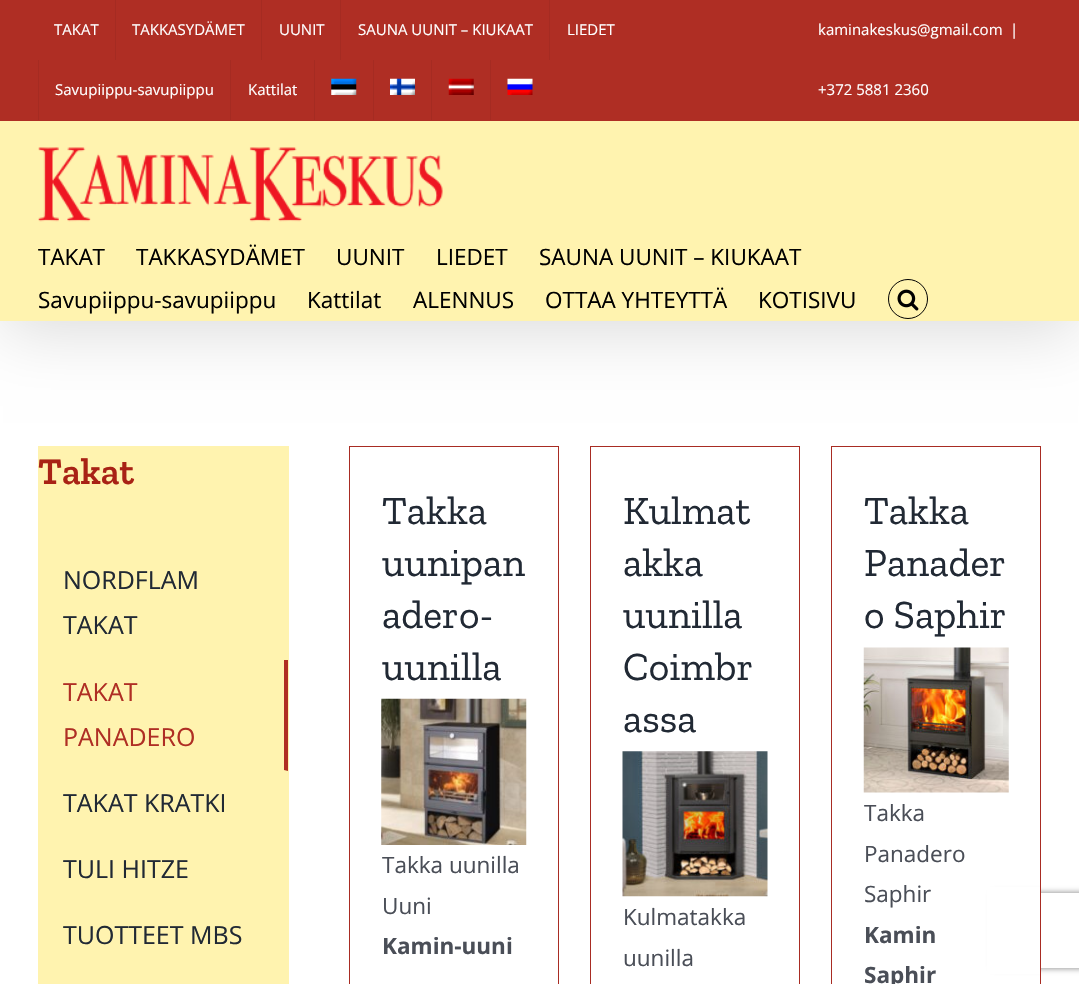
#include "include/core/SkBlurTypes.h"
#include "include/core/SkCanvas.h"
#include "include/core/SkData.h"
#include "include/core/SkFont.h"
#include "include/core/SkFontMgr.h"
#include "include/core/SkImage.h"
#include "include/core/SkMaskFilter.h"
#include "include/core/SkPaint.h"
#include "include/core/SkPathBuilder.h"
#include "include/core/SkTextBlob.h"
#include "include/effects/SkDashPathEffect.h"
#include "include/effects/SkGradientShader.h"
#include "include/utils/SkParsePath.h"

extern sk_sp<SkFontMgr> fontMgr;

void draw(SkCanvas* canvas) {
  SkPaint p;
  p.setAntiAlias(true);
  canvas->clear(SK_ColorWHITE);
  p.setColor(SkColorSetARGB(36, 0, 0, 0));
  p.setMaskFilter(SkMaskFilter::MakeBlur(kNormal_SkBlurStyle, 31));
  canvas->drawRect(SkRect::MakeLTRB(3, 15, 1078, 331), p);
  p.setMaskFilter(nullptr);
  p.setColor(SkColorSetRGB(175, 46, 36));
  canvas->drawRect(SkRect::MakeLTRB(0, 0, 1079, 121), p);
  p.setColor(SkColorSetRGB(165, 43, 34));
  canvas->drawRect(SkRect::MakeLTRB(115, 0, 116, 60), p);
  canvas->drawRect(SkRect::MakeLTRB(261, 0, 262, 60), p);
  canvas->drawRect(SkRect::MakeLTRB(340, 0, 341, 60), p);
  canvas->drawRect(SkRect::MakeLTRB(549, 0, 550, 60), p);
  canvas->drawRect(SkRect::MakeLTRB(38, 60, 39, 120), p);
  canvas->drawRect(SkRect::MakeLTRB(230, 60, 231, 120), p);
  canvas->drawRect(SkRect::MakeLTRB(314, 60, 315, 120), p);
  canvas->drawImageRect(SkImages::DeferredFromEncodedData(SkData::MakeFromFileName("images/1.png")), SkRect::MakeLTRB(331, 78, 357, 95), SkSamplingOptions());
  canvas->drawRect(SkRect::MakeLTRB(373, 60, 374, 120), p);
  canvas->drawImageRect(SkImages::DeferredFromEncodedData(SkData::MakeFromFileName("images/2.png")), SkRect::MakeLTRB(390, 78, 415, 95), SkSamplingOptions());
  canvas->drawRect(SkRect::MakeLTRB(431, 60, 432, 120), p);
  canvas->drawImageRect(SkImages::DeferredFromEncodedData(SkData::MakeFromFileName("images/3.png")), SkRect::MakeLTRB(448, 78, 474, 95), SkSamplingOptions());
  canvas->drawRect(SkRect::MakeLTRB(490, 60, 491, 120), p);
  canvas->drawImageRect(SkImages::DeferredFromEncodedData(SkData::MakeFromFileName("images/4.png")), SkRect::MakeLTRB(507, 78, 533, 95), SkSamplingOptions());
  p.setColor(SkColorSetRGB(255, 243, 175));
  canvas->drawRect(SkRect::MakeLTRB(0, 121, 1079, 321), p);
  canvas->drawImageRect(SkImages::DeferredFromEncodedData(SkData::MakeFromFileName("images/5.png")), SkRect::MakeLTRB(38, 147, 443, 222), SkSamplingOptions());
  p.setStyle(SkPaint::kStroke_Style);
  p.setStrokeWidth(1);
  p.setColor(SK_ColorBLACK);
  canvas->drawCircle(908, 299, 19.5f, p);
  canvas->drawImageRect(SkImages::DeferredFromEncodedData(SkData::MakeFromFileName("images/6.png")), SkRect::MakeLTRB(897, 289, 919, 311), SkSamplingOptions());
  p.setStyle(SkPaint::kFill_Style);
  p.setColor(SkColorSetRGB(255, 243, 175));
  canvas->drawRect(SkRect::MakeLTRB(38, 446, 289, 984), p);
  p.setColor(SkColorSetRGB(175, 46, 36));
  canvas->drawPath(SkPathBuilder().moveTo(288, 660).lineTo(288, 771).lineTo(284, 770).lineTo(284, 660).close().detach(), p);
  p.setColor(SkColorSetRGB(168, 44, 35));
  canvas->drawRect(SkRect::MakeLTRB(349, 446, 559, 447), p);
  canvas->drawRect(SkRect::MakeLTRB(558, 446, 559, 984), p);
  canvas->drawRect(SkRect::MakeLTRB(349, 446, 350, 984), p);
  canvas->drawImageRect(SkImages::DeferredFromEncodedData(SkData::MakeFromFileName("images/7.png")), SkRect::MakeLTRB(381, 698, 527, 845), SkSamplingOptions());
  canvas->drawRect(SkRect::MakeLTRB(590, 446, 800, 447), p);
  canvas->drawRect(SkRect::MakeLTRB(799, 446, 800, 984), p);
  canvas->drawRect(SkRect::MakeLTRB(590, 446, 591, 984), p);
  canvas->drawImageRect(SkImages::DeferredFromEncodedData(SkData::MakeFromFileName("images/8.png")), SkRect::MakeLTRB(622, 751, 768, 897), SkSamplingOptions());
  canvas->save();
  canvas->clipPath(SkPathBuilder(SkPathFillType::kEvenOdd).moveTo(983, 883).lineTo(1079, 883).lineTo(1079, 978).lineTo(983, 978).close().moveTo(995.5f, 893).lineTo(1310.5f, 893).cubicTo(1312, 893, 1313, 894, 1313, 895.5f).lineTo(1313, 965.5f).cubicTo(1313, 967, 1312, 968, 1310.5f, 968).lineTo(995.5f, 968).cubicTo(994, 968, 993, 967, 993, 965.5f).lineTo(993, 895.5f).cubicTo(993, 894, 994, 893, 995.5f, 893).close().detach(), true);
  p.setColor(SkColorSetRGB(128, 128, 128));
  p.setMaskFilter(SkMaskFilter::MakeBlur(kNormal_SkBlurStyle, 3));
  canvas->drawRoundRect(SkRect::MakeLTRB(993, 893, 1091, 968), 2.5f, 2.5f, p);
  p.setMaskFilter(nullptr);
  canvas->restore();
  p.setColor(SK_ColorWHITE);
  canvas->drawRect(SkRect::MakeLTRB(987, 887, 1040, 974), p);
  p.setColor(SkColorSetRGB(168, 44, 35));
  canvas->drawRect(SkRect::MakeLTRB(831, 446, 1041, 447), p);
  canvas->drawRect(SkRect::MakeLTRB(1040, 446, 1041, 984), p);
  canvas->drawRect(SkRect::MakeLTRB(831, 446, 832, 984), p);
  canvas->drawImageRect(SkImages::DeferredFromEncodedData(SkData::MakeFromFileName("images/9.png")), SkRect::MakeLTRB(863, 647, 1009, 793), SkSamplingOptions());
  SkFont font1(fontMgr->matchFamilyStyle("Open Sans", SkFontStyle::Normal()), 15);
  font1.setSubpixel(true);
  p.setColor(SK_ColorWHITE);
  canvas->drawString("TAKAT", 54, 35, font1, p);
  canvas->drawString("TAKKASYDÄMET", 132, 35, font1, p);
  canvas->drawString("UUNIT", 279, 35, font1, p);
  canvas->drawString("SAUNA UUNIT – KIUKAAT", 358, 35, font1, p);
  canvas->drawString("LIEDET", 567, 35, font1, p);
  canvas->drawString("Savupiippu-savupiippu", 55, 95, font1, p);
  canvas->drawString("Kattilat", 248, 95, font1, p);
  canvas->drawString("kaminakeskus@gmail.com", 818, 35, font1, p);
  canvas->drawString("|", 1010, 35, font1, p);
  canvas->drawString("+372 5881 2360", 818, 95, font1, p);
  SkFont font2(fontMgr->matchFamilyStyle("Open Sans", SkFontStyle::Normal()), 22.5f);
  font2.setSubpixel(true);
  p.setColor(SK_ColorBLACK);
  canvas->drawString("TAKAT", 38, 265, font2, p);
  canvas->drawString("TAKKASYDÄMET", 136, 265, font2, p);
  canvas->drawString("UUNIT", 336, 265, font2, p);
  canvas->drawString("LIEDET", 436, 265, font2, p);
  canvas->drawString("SAUNA UUNIT – KIUKAAT", 539, 265, font2, p);
  canvas->drawString("Savupiippu-savupiippu", 38, 308, font2, p);
  canvas->drawString("Kattilat", 307, 308, font2, p);
  canvas->drawString("ALENNUS", 413, 308, font2, p);
  canvas->drawString("OTTAA YHTEYTTÄ", 545, 308, font2, p);
  canvas->drawString("KOTISIVU", 758, 308, font2, p);
  SkFont font3(fontMgr->matchFamilyStyle("Zilla Slab", SkFontStyle(600, SkFontStyle::kNormal_Width, SkFontStyle::kUpright_Slant)), 37.5f);
  font3.setSubpixel(true);
  p.setColor(SkColorSetRGB(168, 34, 21));
  canvas->drawString("Takat", 38, 484, font3, p);
  SkFont font4(fontMgr->matchFamilyStyle("Open Sans", SkFontStyle::Normal()), 25);
  font4.setSubpixel(true);
  p.setColor(SkColorSetRGB(33, 41, 52));
  canvas->drawString("NORDFLAM", 63, 589, font4, p);
  canvas->drawString("TAKAT", 63, 634, font4, p);
  p.setColor(SkColorSetRGB(175, 46, 36));
  canvas->drawString("TAKAT", 63, 701, font4, p);
  canvas->drawString("PANADERO", 63, 746, font4, p);
  p.setColor(SkColorSetRGB(33, 41, 52));
  canvas->drawString("TAKAT KRATKI", 63, 812, font4, p);
  canvas->drawString("TULI HITZE", 63, 878, font4, p);
  canvas->drawString("TUOTTEET MBS", 63, 944, font4, p);
  SkFont font5(fontMgr->matchFamilyStyle("Zilla Slab", SkFontStyle::Normal()), 40);
  font5.setSubpixel(true);
  canvas->drawString("Takka", 382, 524, font5, p);
  canvas->drawString("uunipan", 382, 576, font5, p);
  canvas->drawString("adero-", 382, 628, font5, p);
  canvas->drawString("uunilla", 382, 680, font5, p);
  p.setColor(SkColorSetRGB(74, 78, 87));
  canvas->drawString("Takka uunilla", 382, 873, font2, p);
  canvas->drawString("Uuni", 382, 914, font2, p);
  SkFont font6(fontMgr->matchFamilyStyle("Open Sans", SkFontStyle::Bold()), 22.5f);
  font6.setSubpixel(true);
  canvas->drawString("Kamin-uuni", 382, 954, font6, p);
  p.setColor(SkColorSetRGB(33, 41, 52));
  canvas->drawString("Kulmat", 623, 524, font5, p);
  canvas->drawString("akka", 623, 576, font5, p);
  canvas->drawString("uunilla", 623, 628, font5, p);
  canvas->drawString("Coimbr", 623, 680, font5, p);
  canvas->drawString("assa", 623, 732, font5, p);
  p.setColor(SkColorSetRGB(74, 78, 87));
  canvas->drawString("Kulmatakka", 623, 925, font2, p);
  canvas->drawString("uunilla", 623, 966, font2, p);
  p.setColor(SkColorSetRGB(33, 41, 52));
  canvas->drawString("Takka", 864, 524, font5, p);
  canvas->drawString("Panader", 864, 576, font5, p);
  canvas->drawString("o Saphir", 864, 628, font5, p);
  p.setColor(SkColorSetRGB(74, 78, 87));
  canvas->drawString("Takka", 864, 821, font2, p);
  canvas->drawString("Panadero", 864, 862, font2, p);
  canvas->drawString("Saphir", 864, 902, font2, p);
  canvas->drawString("Kamin", 864, 943, font6, p);
  canvas->drawString("Saphir", 864, 983, font6, p);
}
